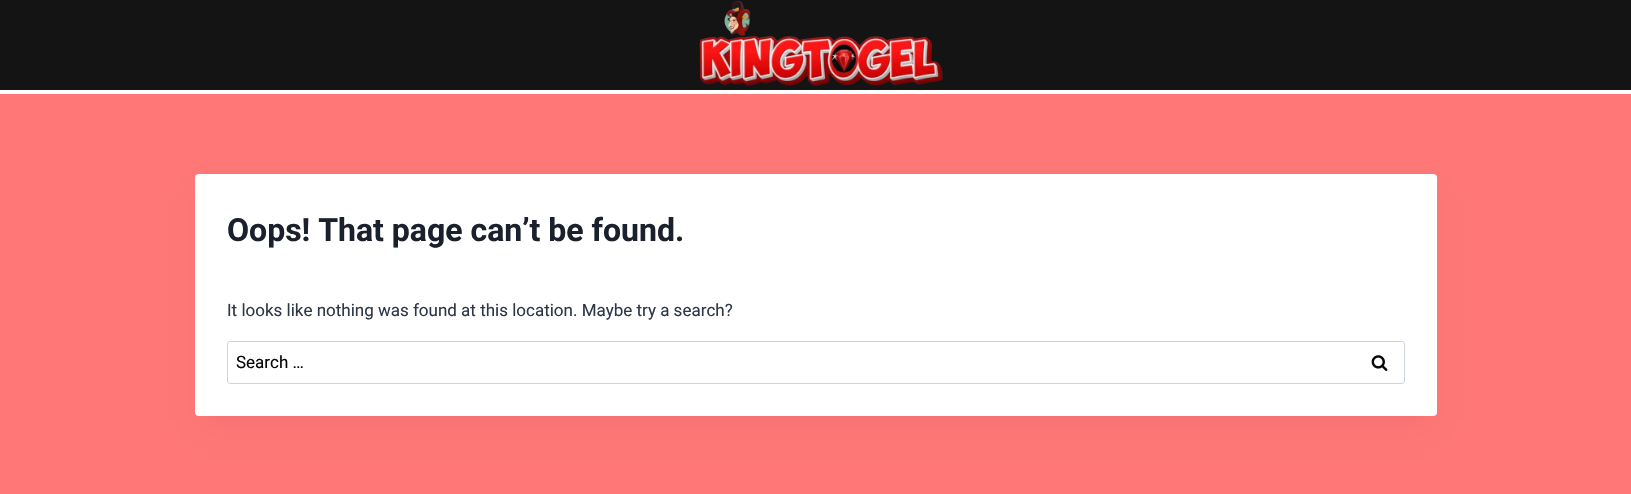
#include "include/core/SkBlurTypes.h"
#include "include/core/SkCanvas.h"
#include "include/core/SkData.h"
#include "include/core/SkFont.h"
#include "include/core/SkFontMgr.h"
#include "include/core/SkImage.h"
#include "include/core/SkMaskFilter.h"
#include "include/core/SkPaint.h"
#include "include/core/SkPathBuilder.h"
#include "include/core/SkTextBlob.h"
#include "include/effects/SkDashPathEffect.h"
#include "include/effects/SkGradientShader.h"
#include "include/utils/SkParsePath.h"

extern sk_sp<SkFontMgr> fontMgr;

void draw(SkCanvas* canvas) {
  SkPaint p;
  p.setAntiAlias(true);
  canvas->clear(SkColorSetRGB(255, 119, 119));
  p.setColor(SkColorSetRGB(21, 20, 20));
  canvas->drawRect(SkRect::MakeLTRB(0, 0, 1631, 90), p);
  p.setColor(SK_ColorWHITE);
  canvas->drawRect(SkRect::MakeLTRB(0, 90, 1631, 94), p);
  canvas->drawImageRect(SkImages::DeferredFromEncodedData(SkData::MakeFromFileName("images/1.png")), SkRect::MakeLTRB(699, 1, 943, 86), SkSamplingOptions());
  p.setColor(SkColorSetARGB(13, 0, 0, 0));
  p.setMaskFilter(SkMaskFilter::MakeBlur(kNormal_SkBlurStyle, 12.5f));
  canvas->drawRect(SkRect::MakeLTRB(205, 199, 1427, 421), p);
  p.setMaskFilter(nullptr);
  p.setColor(SK_ColorWHITE);
  canvas->drawRoundRect(SkRect::MakeLTRB(195, 174, 1437, 416), 4, 4, p);
  p.setStyle(SkPaint::kStroke_Style);
  p.setStrokeWidth(1);
  p.setColor(SkColorSetRGB(203, 213, 224));
  canvas->drawRoundRect(SkRect::MakeLTRB(227.5f, 341.5f, 1404.5f, 383.5f), 2.5f, 2.5f, p);
  canvas->drawImageRect(SkImages::DeferredFromEncodedData(SkData::MakeFromFileName("images/2.png")), SkRect::MakeLTRB(1371, 355, 1388, 371), SkSamplingOptions());
  SkFont font1(fontMgr->matchFamilyStyle("Roboto", SkFontStyle::Bold()), 32);
  font1.setSubpixel(true);
  p.setStyle(SkPaint::kFill_Style);
  p.setColor(SkColorSetRGB(26, 32, 44));
  canvas->drawString("Oops! That page can’t be found.", 227, 241, font1, p);
  SkFont font2(fontMgr->matchFamilyStyle("Roboto", SkFontStyle::Normal()), 17);
  font2.setSubpixel(true);
  p.setColor(SkColorSetRGB(45, 55, 72));
  canvas->drawString("It looks like nothing was found at this location. Maybe try a search?", 227, 316, font2, p);
  p.setColor(SkColorSetRGB(6, 6, 6));
  canvas->drawString("Search …", 236, 368, font2, p);
}
